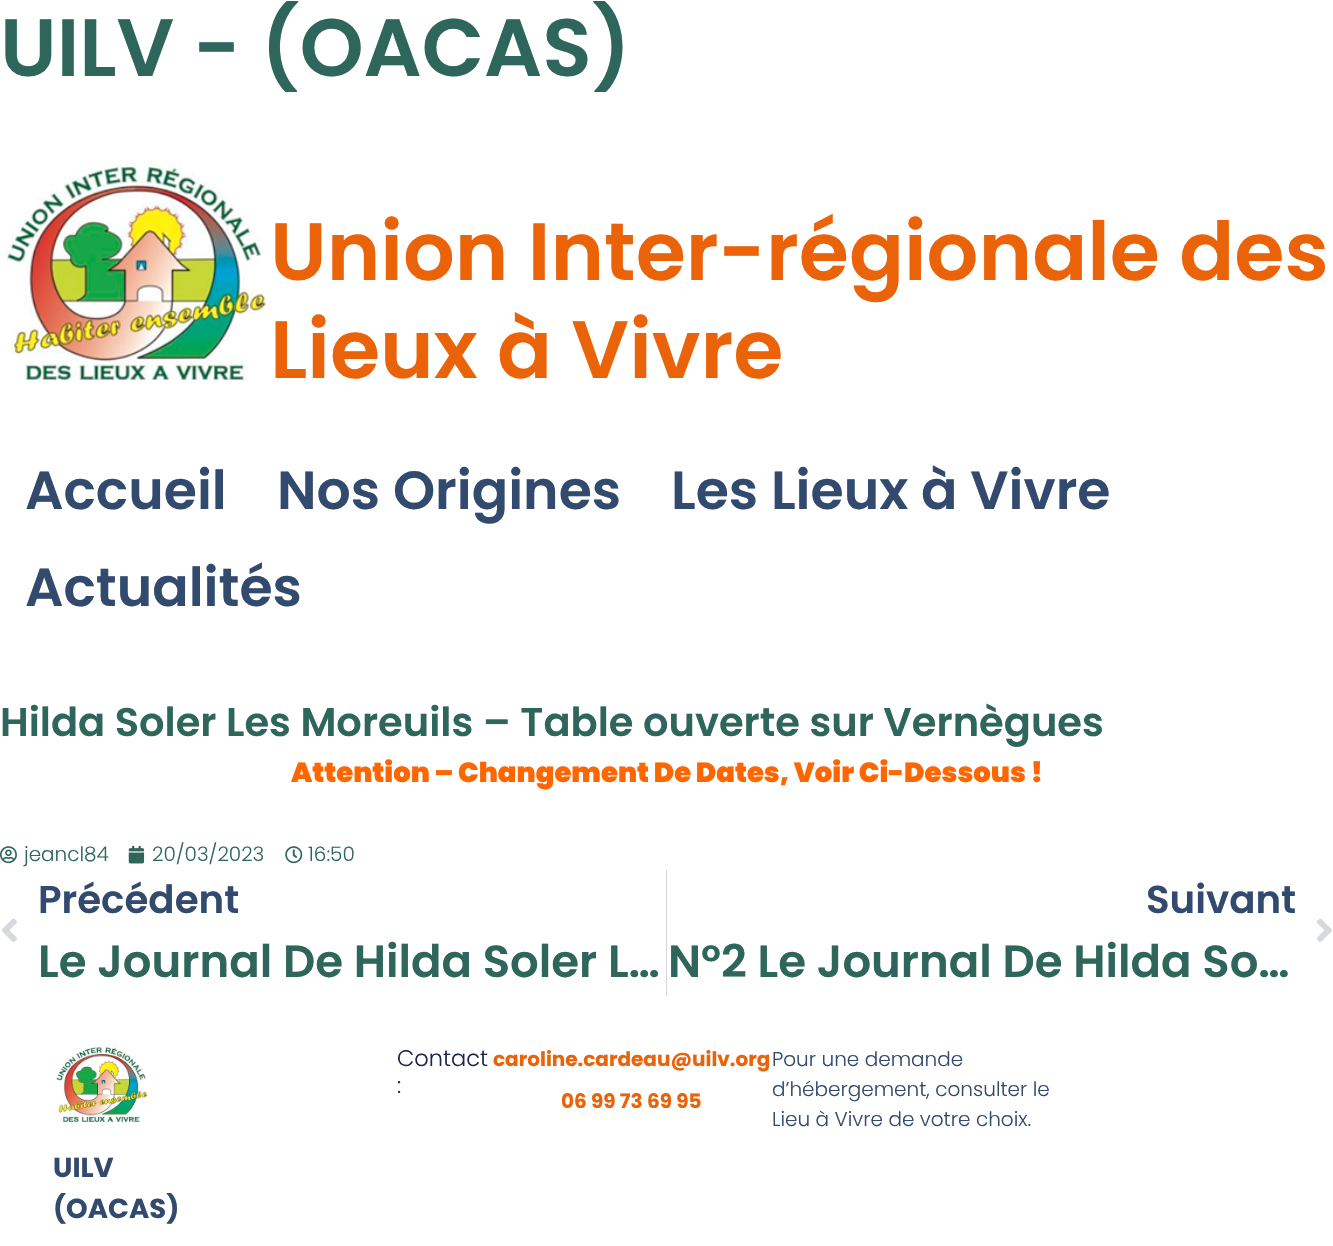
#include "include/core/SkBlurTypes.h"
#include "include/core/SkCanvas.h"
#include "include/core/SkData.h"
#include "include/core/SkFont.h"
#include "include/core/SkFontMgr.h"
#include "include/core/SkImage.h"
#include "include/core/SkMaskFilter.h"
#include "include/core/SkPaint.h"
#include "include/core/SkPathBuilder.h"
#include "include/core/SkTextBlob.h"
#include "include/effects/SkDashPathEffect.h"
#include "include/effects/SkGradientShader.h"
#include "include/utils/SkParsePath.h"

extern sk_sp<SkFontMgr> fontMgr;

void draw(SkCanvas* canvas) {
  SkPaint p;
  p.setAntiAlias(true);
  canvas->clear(SK_ColorWHITE);
  canvas->drawImageRect(SkImages::DeferredFromEncodedData(SkData::MakeFromFileName("images/1.png")), SkRect::MakeLTRB(4, 160, 270, 381), SkSamplingOptions());
  canvas->drawImageRect(SkImages::DeferredFromEncodedData(SkData::MakeFromFileName("images/2.png")), SkRect::MakeLTRB(0, 846, 17, 864), SkSamplingOptions());
  canvas->drawImageRect(SkImages::DeferredFromEncodedData(SkData::MakeFromFileName("images/3.png")), SkRect::MakeLTRB(128, 845, 145, 864), SkSamplingOptions());
  canvas->drawImageRect(SkImages::DeferredFromEncodedData(SkData::MakeFromFileName("images/4.png")), SkRect::MakeLTRB(285, 846, 303, 864), SkSamplingOptions());
  canvas->drawImageRect(SkImages::DeferredFromEncodedData(SkData::MakeFromFileName("images/5.png")), SkRect::MakeLTRB(1, 918, 17, 942), SkSamplingOptions());
  p.setColor(SkColorSetRGB(213, 216, 220));
  canvas->drawRect(SkRect::MakeLTRB(666, 870, 667, 996), p);
  canvas->drawImageRect(SkImages::DeferredFromEncodedData(SkData::MakeFromFileName("images/6.png")), SkRect::MakeLTRB(1316, 918, 1332, 942), SkSamplingOptions());
  canvas->drawImageRect(SkImages::DeferredFromEncodedData(SkData::MakeFromFileName("images/7.png")), SkRect::MakeLTRB(55, 1045, 149, 1122), SkSamplingOptions());
  SkFont font1(fontMgr->matchFamilyStyle("Poppins", SkFontStyle(600, SkFontStyle::kNormal_Width, SkFontStyle::kUpright_Slant)), 81.25f);
  font1.setSubpixel(true);
  p.setColor(SkColorSetRGB(47, 102, 91));
  canvas->drawString("UILV - (OACAS)", 0, 76, font1, p);
  p.setColor(SkColorSetRGB(235, 99, 8));
  canvas->drawString("Union Inter-régionale des", 270, 280, font1, p);
  canvas->drawString("Lieux à Vivre", 270, 378, font1, p);
  SkFont font2(fontMgr->matchFamilyStyle("Poppins", SkFontStyle(600, SkFontStyle::kNormal_Width, SkFontStyle::kUpright_Slant)), 53.75f);
  font2.setSubpixel(true);
  p.setColor(SkColorSetRGB(50, 74, 109));
  canvas->drawString("Accueil", 25, 509, font2, p);
  canvas->drawString("Nos Origines", 277, 509, font2, p);
  canvas->drawString("Les Lieux à Vivre", 671, 509, font2, p);
  canvas->drawString("Actualités", 25, 606, font2, p);
  SkFont font3(fontMgr->matchFamilyStyle("Poppins", SkFontStyle(600, SkFontStyle::kNormal_Width, SkFontStyle::kUpright_Slant)), 40);
  font3.setSubpixel(true);
  p.setColor(SkColorSetRGB(47, 102, 91));
  canvas->drawString("Hilda Soler Les Moreuils – Table ouverte sur Vernègues", 0, 736, font3, p);
  SkFont font4(fontMgr->matchFamilyStyle("Poppins", SkFontStyle(900, SkFontStyle::kNormal_Width, SkFontStyle::kUpright_Slant)), 27.5f);
  font4.setSubpixel(true);
  p.setColor(SkColorSetRGB(255, 102, 0));
  canvas->drawString("Attention – Changement De Dates, Voir Ci-Dessous !", 291, 782, font4, p);
  SkFont font5(fontMgr->matchFamilyStyle("Poppins", SkFontStyle(300, SkFontStyle::kNormal_Width, SkFontStyle::kUpright_Slant)), 20);
  font5.setSubpixel(true);
  p.setColor(SkColorSetRGB(47, 102, 91));
  canvas->drawString("jeancl84", 24, 861, font5, p);
  canvas->drawString("20/03/2023", 152, 861, font5, p);
  canvas->drawString("16:50", 308, 861, font5, p);
  SkFont font6(fontMgr->matchFamilyStyle("Poppins", SkFontStyle(600, SkFontStyle::kNormal_Width, SkFontStyle::kUpright_Slant)), 38.75f);
  font6.setSubpixel(true);
  p.setColor(SkColorSetRGB(50, 74, 109));
  canvas->drawString("Précédent", 38, 913, font6, p);
  SkFont font7(fontMgr->matchFamilyStyle("Poppins", SkFontStyle(600, SkFontStyle::kNormal_Width, SkFontStyle::kUpright_Slant)), 45);
  font7.setSubpixel(true);
  p.setColor(SkColorSetRGB(47, 102, 91));
  canvas->drawString("Le Journal De Hilda Soler L…", 38, 977, font7, p);
  p.setColor(SkColorSetRGB(50, 74, 109));
  canvas->drawString("Suivant", 1146, 913, font6, p);
  p.setColor(SkColorSetRGB(47, 102, 91));
  canvas->drawString("N°2 Le Journal De Hilda So…", 668, 977, font7, p);
  SkFont font8(fontMgr->matchFamilyStyle("Poppins", SkFontStyle(300, SkFontStyle::kNormal_Width, SkFontStyle::kUpright_Slant)), 22.5f);
  font8.setSubpixel(true);
  p.setColor(SkColorSetRGB(28, 36, 75));
  canvas->drawString("Contact", 397, 1066, font8, p);
  canvas->drawString(":", 397, 1093, font8, p);
  SkFont font9(fontMgr->matchFamilyStyle("Poppins", SkFontStyle::Bold()), 20);
  font9.setSubpixel(true);
  p.setColor(SkColorSetRGB(235, 99, 8));
  canvas->drawString("caroline.cardeau@uilv.org", 493, 1066, font9, p);
  canvas->drawString("06 99 73 69 95", 561, 1108, font9, p);
  p.setColor(SkColorSetRGB(50, 74, 109));
  canvas->drawString("Pour une demande", 772, 1066, font5, p);
  canvas->drawString("d’hébergement, consulter le", 772, 1096, font5, p);
  canvas->drawString("Lieu à Vivre de votre choix.", 772, 1126, font5, p);
  SkFont font10(fontMgr->matchFamilyStyle("Poppins", SkFontStyle::Bold()), 27.5f);
  font10.setSubpixel(true);
  canvas->drawString("UILV", 53, 1177, font10, p);
  canvas->drawString("(OACAS)", 53, 1218, font10, p);
}
